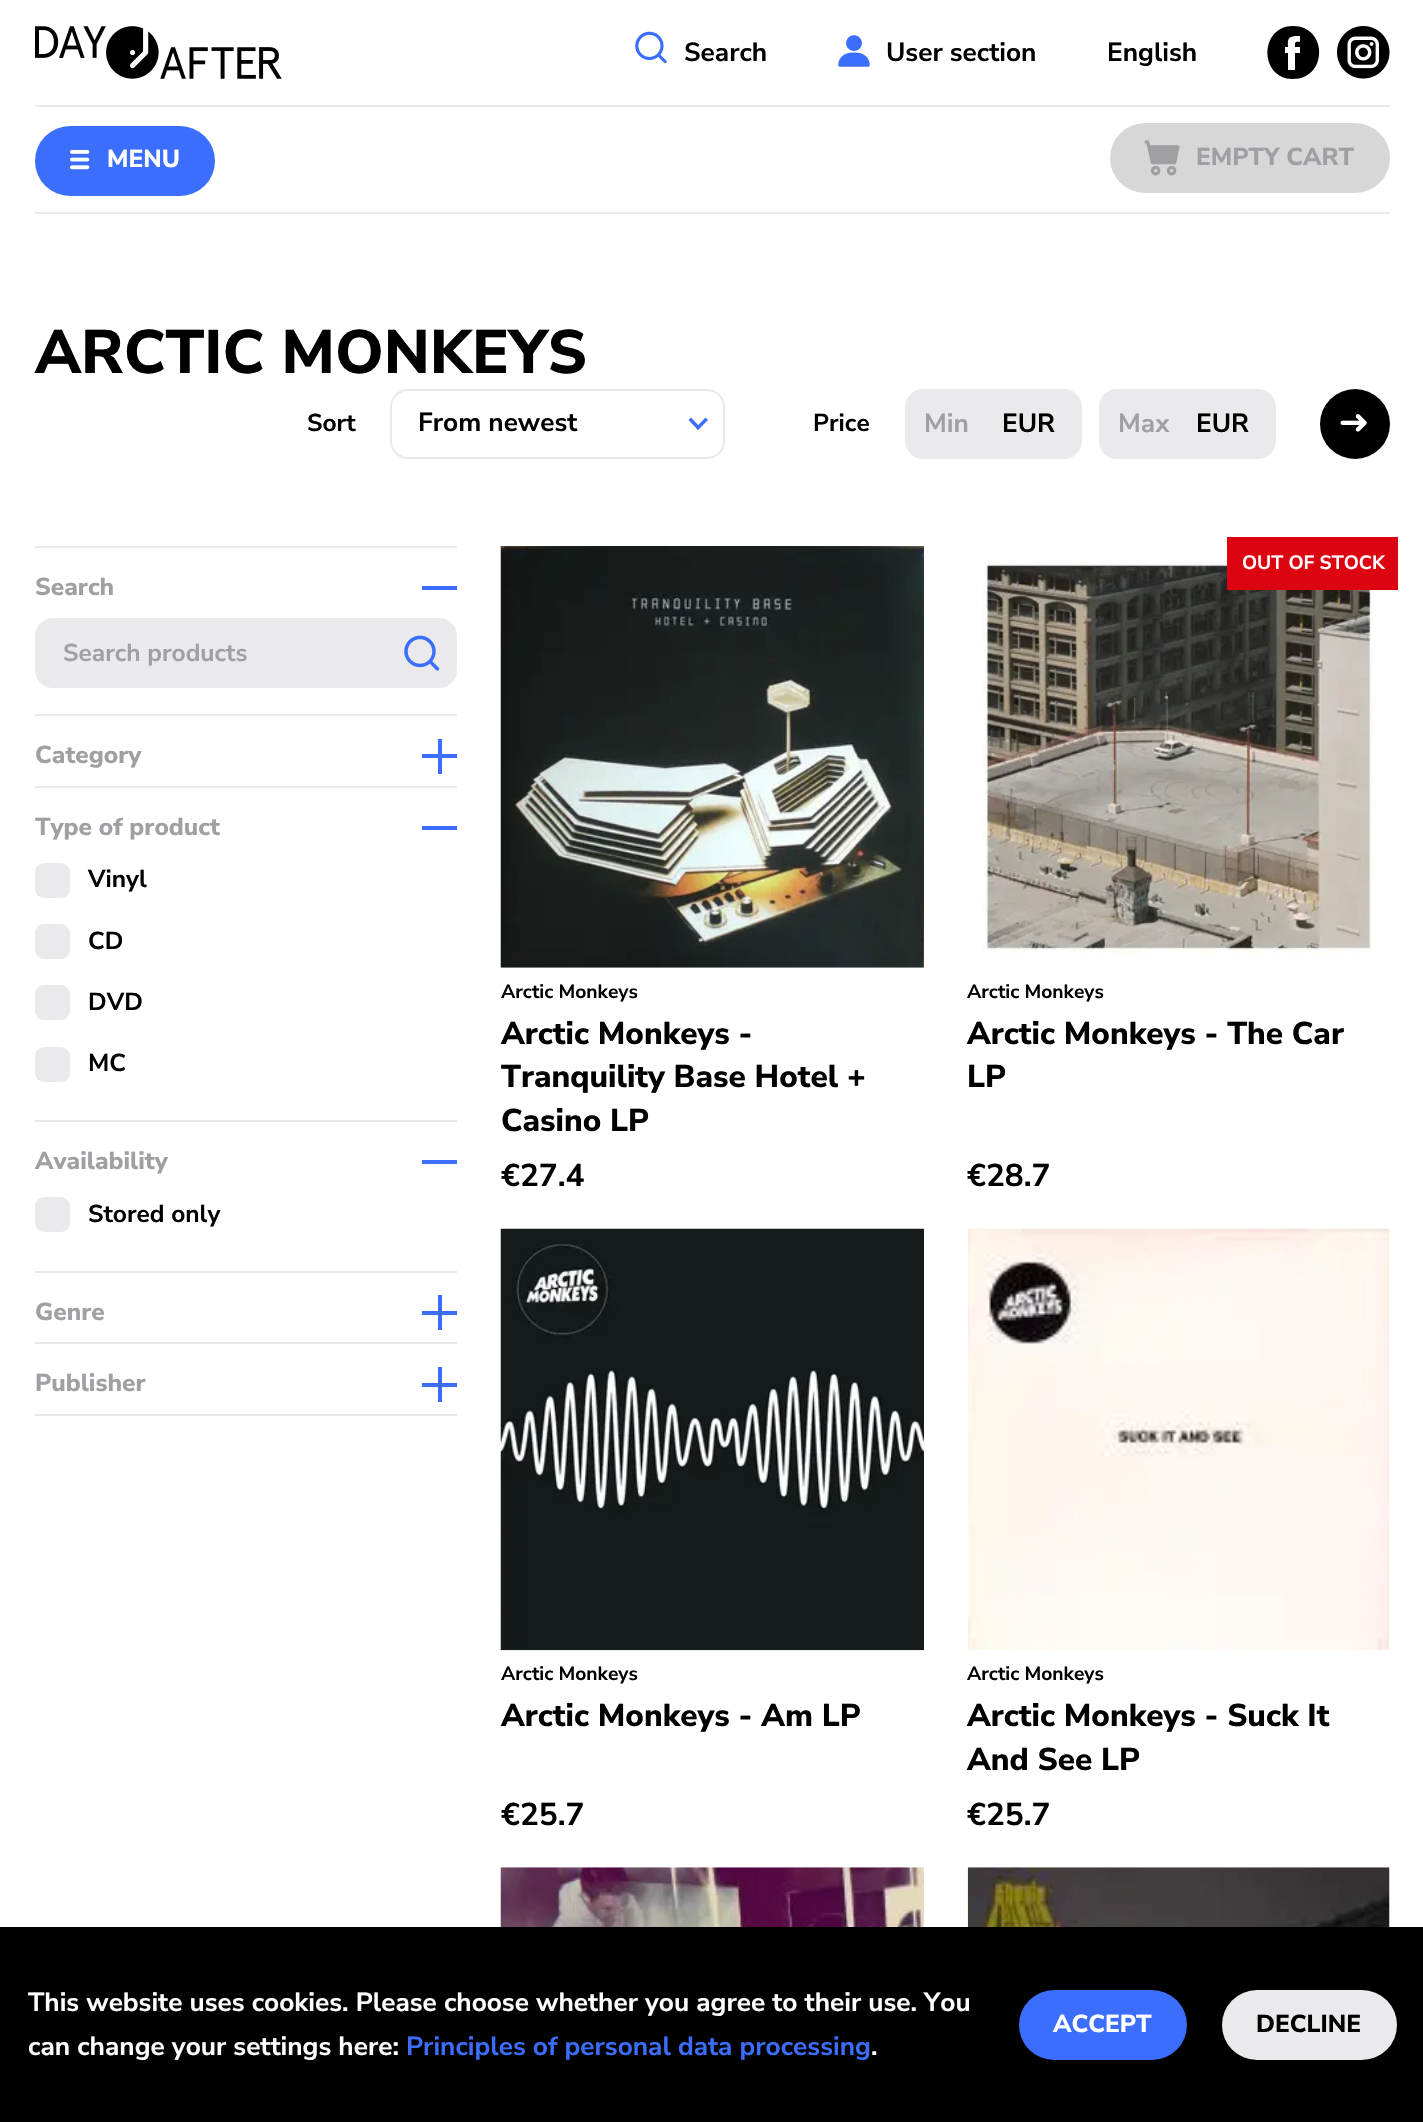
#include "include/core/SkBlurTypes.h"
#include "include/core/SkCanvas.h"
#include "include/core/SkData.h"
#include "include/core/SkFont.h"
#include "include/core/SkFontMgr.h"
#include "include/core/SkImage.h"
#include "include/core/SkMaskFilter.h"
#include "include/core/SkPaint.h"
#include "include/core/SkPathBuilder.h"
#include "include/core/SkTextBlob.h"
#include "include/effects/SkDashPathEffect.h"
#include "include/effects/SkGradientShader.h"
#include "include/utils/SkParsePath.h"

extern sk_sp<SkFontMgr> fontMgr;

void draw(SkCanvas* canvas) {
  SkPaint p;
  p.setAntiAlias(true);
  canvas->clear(SK_ColorWHITE);
  canvas->drawImageRect(SkImages::DeferredFromEncodedData(SkData::MakeFromFileName("images/1.png")), SkRect::MakeLTRB(35, 26, 282, 79), SkSamplingOptions());
  canvas->drawImageRect(SkImages::DeferredFromEncodedData(SkData::MakeFromFileName("images/2.png")), SkRect::MakeLTRB(635, 31, 667, 64), SkSamplingOptions());
  canvas->drawImageRect(SkImages::DeferredFromEncodedData(SkData::MakeFromFileName("images/3.png")), SkRect::MakeLTRB(838, 35, 870, 67), SkSamplingOptions());
  p.setColor(SK_ColorBLACK);
  canvas->drawPath(SkPathBuilder().moveTo(1293, 26).cubicTo(1259, 26, 1259, 79, 1293, 79).cubicTo(1328, 79, 1328, 26, 1293, 26).close().moveTo(1300, 42).cubicTo(1299, 42, 1295, 41, 1295, 44).lineTo(1295, 47).lineTo(1300, 47).lineTo(1300, 53).lineTo(1295, 53).lineTo(1295, 70).lineTo(1288, 70).lineTo(1288, 53).lineTo(1285, 53).lineTo(1285, 47).lineTo(1288, 47).cubicTo(1288, 43, 1287, 39, 1291, 37).lineTo(1295, 36).lineTo(1300, 36).close().detach(), p);
  canvas->drawImageRect(SkImages::DeferredFromEncodedData(SkData::MakeFromFileName("images/4.png")), SkRect::MakeLTRB(1337, 26, 1390, 79), SkSamplingOptions());
  p.setColor(SkColorSetRGB(234, 234, 236));
  canvas->drawRect(SkRect::MakeLTRB(35, 105, 1390, 107), p);
  p.setColor(SkColorSetRGB(60, 110, 254));
  canvas->drawRoundRect(SkRect::MakeLTRB(35, 126, 215, 196), 35, 35, p);
  canvas->drawImageRect(SkImages::DeferredFromEncodedData(SkData::MakeFromFileName("images/5.png")), SkRect::MakeLTRB(70, 149, 90, 170), SkSamplingOptions());
  p.setColor(SkColorSetRGB(215, 215, 215));
  canvas->drawRoundRect(SkRect::MakeLTRB(1110, 123, 1390, 193), 35, 35, p);
  canvas->drawImageRect(SkImages::DeferredFromEncodedData(SkData::MakeFromFileName("images/6.png")), SkRect::MakeLTRB(1144, 140, 1180, 176), SkSamplingOptions());
  p.setColor(SkColorSetRGB(234, 234, 236));
  canvas->drawRect(SkRect::MakeLTRB(35, 212, 1390, 214), p);
  p.setStyle(SkPaint::kStroke_Style);
  p.setStrokeWidth(2);
  canvas->drawRoundRect(SkRect::MakeLTRB(391, 390, 724, 458), 17, 17, p);
  p.setStyle(SkPaint::kFill_Style);
  p.setColor(SkColorSetRGB(60, 110, 254));
  canvas->drawPath(SkPathBuilder().moveTo(705.5f, 417.5f).lineTo(708, 420).lineTo(698, 430).lineTo(696, 427.5f).close().detach(), p);
  canvas->drawPath(SkPathBuilder().moveTo(691, 417.5f).lineTo(700.5f, 427.5f).lineTo(698, 430).lineTo(688.5f, 420).close().detach(), p);
  p.setColor(SkColorSetRGB(234, 234, 236));
  canvas->drawRoundRect(SkRect::MakeLTRB(906, 390, 1081, 458), 17, 17, p);
  p.setStyle(SkPaint::kStroke_Style);
  canvas->drawRoundRect(SkRect::MakeLTRB(906, 390, 1081, 458), 17, 17, p);
  p.setStyle(SkPaint::kFill_Style);
  canvas->drawRoundRect(SkRect::MakeLTRB(1100, 390, 1275, 458), 17, 17, p);
  p.setStyle(SkPaint::kStroke_Style);
  canvas->drawRoundRect(SkRect::MakeLTRB(1100, 390, 1275, 458), 17, 17, p);
  p.setStyle(SkPaint::kFill_Style);
  p.setColor(SK_ColorBLACK);
  canvas->drawCircle(1355, 424, 35, p);
  canvas->drawImageRect(SkImages::DeferredFromEncodedData(SkData::MakeFromFileName("images/7.png")), SkRect::MakeLTRB(1340, 414, 1367, 432), SkSamplingOptions());
  p.setColor(SkColorSetRGB(234, 234, 236));
  canvas->drawRect(SkRect::MakeLTRB(35, 546, 457, 548), p);
  p.setColor(SkColorSetRGB(60, 110, 254));
  canvas->drawRect(SkRect::MakeLTRB(422, 586, 457, 590), p);
  p.setColor(SkColorSetRGB(234, 234, 236));
  canvas->drawRoundRect(SkRect::MakeLTRB(36, 619, 456, 687), 17, 17, p);
  p.setStyle(SkPaint::kStroke_Style);
  canvas->drawRoundRect(SkRect::MakeLTRB(36, 619, 456, 687), 17, 17, p);
  canvas->drawImageRect(SkImages::DeferredFromEncodedData(SkData::MakeFromFileName("images/8.png")), SkRect::MakeLTRB(404, 635, 440, 671), SkSamplingOptions());
  p.setStyle(SkPaint::kFill_Style);
  canvas->drawRect(SkRect::MakeLTRB(35, 714, 457, 716), p);
  p.setColor(SkColorSetRGB(60, 110, 254));
  canvas->drawRect(SkRect::MakeLTRB(438, 739, 442, 774), p);
  canvas->drawRect(SkRect::MakeLTRB(422, 754, 457, 758), p);
  p.setColor(SkColorSetRGB(234, 234, 236));
  canvas->drawRect(SkRect::MakeLTRB(35, 786, 457, 788), p);
  p.setColor(SkColorSetRGB(60, 110, 254));
  canvas->drawRect(SkRect::MakeLTRB(422, 826, 457, 830), p);
  p.setColor(SkColorSetRGB(234, 234, 236));
  canvas->drawRoundRect(SkRect::MakeLTRB(35, 863, 70, 898), 9, 9, p);
  canvas->drawRoundRect(SkRect::MakeLTRB(35, 924, 70, 959), 9, 9, p);
  canvas->drawRoundRect(SkRect::MakeLTRB(35, 985, 70, 1020), 9, 9, p);
  canvas->drawRoundRect(SkRect::MakeLTRB(35, 1047, 70, 1082), 9, 9, p);
  canvas->drawRect(SkRect::MakeLTRB(35, 1120, 457, 1122), p);
  p.setColor(SkColorSetRGB(60, 110, 254));
  canvas->drawRect(SkRect::MakeLTRB(422, 1160, 457, 1164), p);
  p.setColor(SkColorSetRGB(234, 234, 236));
  canvas->drawRoundRect(SkRect::MakeLTRB(35, 1197, 70, 1232), 9, 9, p);
  canvas->drawRect(SkRect::MakeLTRB(35, 1271, 457, 1273), p);
  p.setColor(SkColorSetRGB(60, 110, 254));
  canvas->drawRect(SkRect::MakeLTRB(438, 1295, 442, 1330), p);
  canvas->drawRect(SkRect::MakeLTRB(422, 1311, 457, 1315), p);
  p.setColor(SkColorSetRGB(234, 234, 236));
  canvas->drawRect(SkRect::MakeLTRB(35, 1342, 457, 1344), p);
  canvas->drawRect(SkRect::MakeLTRB(35, 1414, 457, 1416), p);
  p.setColor(SkColorSetRGB(60, 110, 254));
  canvas->drawRect(SkRect::MakeLTRB(438, 1367, 442, 1402), p);
  canvas->drawRect(SkRect::MakeLTRB(422, 1383, 457, 1387), p);
  canvas->drawImageRect(SkImages::DeferredFromEncodedData(SkData::MakeFromFileName("images/9.png")), SkRect::MakeLTRB(500, 546, 924, 968), SkSamplingOptions());
  canvas->drawImageRect(SkImages::DeferredFromEncodedData(SkData::MakeFromFileName("images/10.png")), SkRect::MakeLTRB(982, 561, 1374, 955), SkSamplingOptions());
  p.setColor(SkColorSetRGB(221, 4, 17));
  canvas->drawRect(SkRect::MakeLTRB(1227, 537, 1398, 590), p);
  canvas->drawImageRect(SkImages::DeferredFromEncodedData(SkData::MakeFromFileName("images/11.png")), SkRect::MakeLTRB(500, 1228, 924, 1651), SkSamplingOptions());
  canvas->drawImageRect(SkImages::DeferredFromEncodedData(SkData::MakeFromFileName("images/12.png")), SkRect::MakeLTRB(968, 1228, 1390, 1650), SkSamplingOptions());
  canvas->drawImageRect(SkImages::DeferredFromEncodedData(SkData::MakeFromFileName("images/13.png")), SkRect::MakeLTRB(500, 1867, 924, 1927), SkSamplingOptions());
  canvas->drawImageRect(SkImages::DeferredFromEncodedData(SkData::MakeFromFileName("images/14.png")), SkRect::MakeLTRB(967, 1867, 1390, 1927), SkSamplingOptions());
  p.setColor(SK_ColorBLACK);
  canvas->drawRect(SkRect::MakeLTRB(0, 1927, 1423, 2122), p);
  p.setColor(SkColorSetRGB(60, 110, 254));
  canvas->drawRoundRect(SkRect::MakeLTRB(1019, 1990, 1187, 2060), 35, 35, p);
  p.setColor(SkColorSetRGB(234, 234, 236));
  canvas->drawRoundRect(SkRect::MakeLTRB(1222, 1990, 1397, 2060), 35, 35, p);
  SkFont font1(fontMgr->matchFamilyStyle("Nunito Sans", SkFontStyle::Bold()), 26.25f);
  font1.setSubpixel(true);
  p.setColor(SK_ColorBLACK);
  canvas->drawString("Search", 684, 61, font1, p);
  canvas->drawString("User section", 886, 61, font1, p);
  canvas->drawString("English", 1107, 61, font1, p);
  SkFont font2(fontMgr->matchFamilyStyle("Nunito Sans", SkFontStyle(800, SkFontStyle::kNormal_Width, SkFontStyle::kUpright_Slant)), 24.5f);
  font2.setSubpixel(true);
  p.setColor(SK_ColorWHITE);
  canvas->drawString("MENU", 107, 167, font2, p);
  p.setColor(SkColorSetRGB(159, 159, 164));
  canvas->drawString("EMPTY CART", 1196, 165, font2, p);
  SkFont font3(fontMgr->matchFamilyStyle("Nunito Sans", SkFontStyle(800, SkFontStyle::kNormal_Width, SkFontStyle::kUpright_Slant)), 61.25f);
  font3.setSubpixel(true);
  p.setColor(SK_ColorBLACK);
  canvas->drawString("ARCTIC MONKEYS", 35, 373, font3, p);
  SkFont font4(fontMgr->matchFamilyStyle("Nunito Sans", SkFontStyle::Bold()), 24.5f);
  font4.setSubpixel(true);
  canvas->drawString("Sort", 307, 431, font4, p);
  canvas->drawString("From newest", 418, 431, font1, p);
  canvas->drawString("Price", 813, 431, font4, p);
  p.setColor(SkColorSetRGB(159, 159, 164));
  canvas->drawString("Min", 924, 432, font1, p);
  p.setColor(SK_ColorBLACK);
  canvas->drawString("EUR", 1002, 432, font1, p);
  p.setColor(SkColorSetRGB(159, 159, 164));
  canvas->drawString("Max", 1118, 432, font1, p);
  p.setColor(SK_ColorBLACK);
  canvas->drawString("EUR", 1196, 432, font1, p);
  p.setColor(SkColorSetRGB(159, 159, 164));
  canvas->drawString("Search", 35, 595, font2, p);
  canvas->drawString("Search products", 63, 661, font4, p);
  canvas->drawString("Category", 35, 763, font2, p);
  canvas->drawString("Type of product", 35, 835, font2, p);
  p.setColor(SK_ColorBLACK);
  canvas->drawString("Vinyl", 88, 887, font4, p);
  canvas->drawString("CD", 88, 949, font4, p);
  canvas->drawString("DVD", 88, 1010, font4, p);
  canvas->drawString("MC", 88, 1071, font4, p);
  p.setColor(SkColorSetRGB(159, 159, 164));
  canvas->drawString("Availability", 35, 1169, font2, p);
  p.setColor(SK_ColorBLACK);
  canvas->drawString("Stored only", 88, 1222, font4, p);
  p.setColor(SkColorSetRGB(159, 159, 164));
  canvas->drawString("Genre", 35, 1320, font2, p);
  canvas->drawString("Publisher", 35, 1391, font2, p);
  SkFont font5(fontMgr->matchFamilyStyle("Nunito Sans", SkFontStyle::Bold()), 19.25f);
  font5.setSubpixel(true);
  p.setColor(SK_ColorBLACK);
  canvas->drawString("Arctic Monkeys", 501, 998, font5, p);
  SkFont font6(fontMgr->matchFamilyStyle("Nunito Sans", SkFontStyle(800, SkFontStyle::kNormal_Width, SkFontStyle::kUpright_Slant)), 31.5f);
  font6.setSubpixel(true);
  canvas->drawString("Arctic Monkeys -", 501, 1044, font6, p);
  canvas->drawString("Tranquility Base Hotel +", 501, 1087, font6, p);
  canvas->drawString("Casino LP", 501, 1131, font6, p);
  SkFont font7(fontMgr->matchFamilyStyle("Nunito Sans", SkFontStyle::Bold()), 31.5f);
  font7.setSubpixel(true);
  canvas->drawString("€27.4", 501, 1186, font7, p);
  p.setColor(SK_ColorWHITE);
  canvas->drawString("OUT OF STOCK", 1242, 569, font5, p);
  p.setColor(SK_ColorBLACK);
  canvas->drawString("Arctic Monkeys", 967, 998, font5, p);
  canvas->drawString("Arctic Monkeys - The Car", 967, 1044, font6, p);
  canvas->drawString("LP", 967, 1087, font6, p);
  canvas->drawString("€28.7", 967, 1186, font7, p);
  canvas->drawString("Arctic Monkeys", 501, 1680, font5, p);
  canvas->drawString("Arctic Monkeys - Am LP", 501, 1726, font6, p);
  canvas->drawString("€25.7", 501, 1825, font7, p);
  canvas->drawString("Arctic Monkeys", 967, 1680, font5, p);
  canvas->drawString("Arctic Monkeys - Suck It", 967, 1726, font6, p);
  canvas->drawString("And See LP", 967, 1770, font6, p);
  canvas->drawString("€25.7", 967, 1825, font7, p);
  p.setColor(SK_ColorWHITE);
  canvas->drawString("This website uses cookies. Please choose whether you agree to their use. You", 28, 2011, font1, p);
  canvas->drawString("can change your settings here:", 28, 2055, font1, p);
  p.setColor(SkColorSetRGB(60, 110, 254));
  canvas->drawString("Principles of personal data processing", 406, 2055, font1, p);
  p.setColor(SK_ColorWHITE);
  canvas->drawString(".", 871, 2055, font1, p);
  canvas->drawString("ACCEPT", 1053, 2032, font2, p);
  p.setColor(SK_ColorBLACK);
  canvas->drawString("DECLINE", 1256, 2032, font2, p);
}
